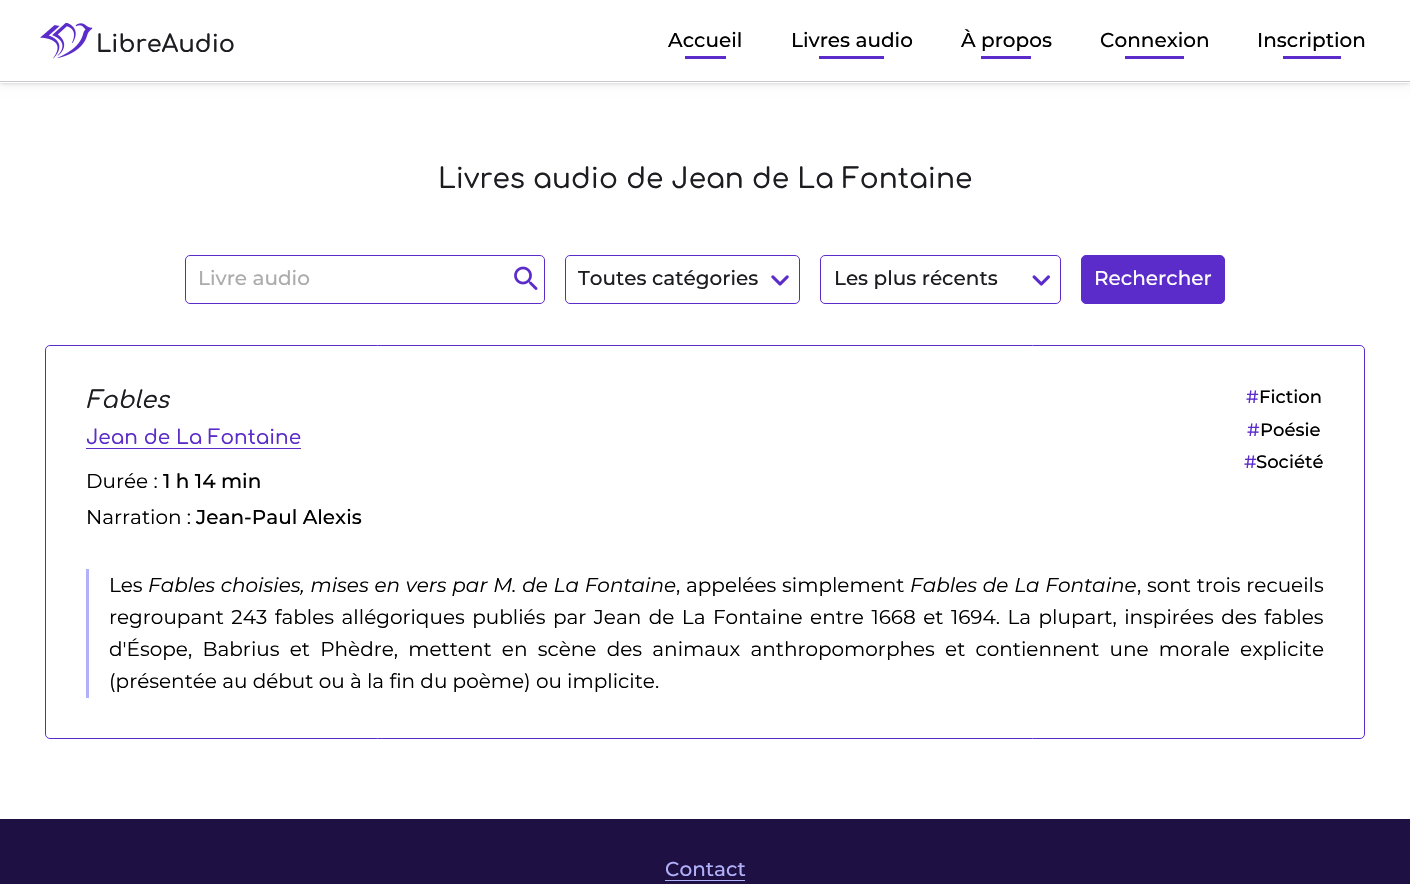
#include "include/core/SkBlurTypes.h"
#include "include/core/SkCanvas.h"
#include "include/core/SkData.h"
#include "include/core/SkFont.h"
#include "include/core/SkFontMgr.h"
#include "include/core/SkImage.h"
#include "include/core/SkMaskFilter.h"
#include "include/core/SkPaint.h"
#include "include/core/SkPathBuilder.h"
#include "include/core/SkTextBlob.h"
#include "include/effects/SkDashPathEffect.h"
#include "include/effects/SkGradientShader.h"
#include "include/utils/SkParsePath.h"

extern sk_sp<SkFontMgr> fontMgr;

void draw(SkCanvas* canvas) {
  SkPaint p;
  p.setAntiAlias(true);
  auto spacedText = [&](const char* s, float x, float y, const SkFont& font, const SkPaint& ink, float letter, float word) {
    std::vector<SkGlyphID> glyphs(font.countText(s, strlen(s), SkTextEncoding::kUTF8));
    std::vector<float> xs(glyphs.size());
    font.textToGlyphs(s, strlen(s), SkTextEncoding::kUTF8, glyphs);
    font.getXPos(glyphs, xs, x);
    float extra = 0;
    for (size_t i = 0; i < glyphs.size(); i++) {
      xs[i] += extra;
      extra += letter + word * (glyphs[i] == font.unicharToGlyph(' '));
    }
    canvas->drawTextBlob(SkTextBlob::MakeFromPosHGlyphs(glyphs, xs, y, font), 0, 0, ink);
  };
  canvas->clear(SK_ColorWHITE);
  p.setColor(SkColorSetARGB(13, 0, 0, 0));
  p.setMaskFilter(SkMaskFilter::MakeBlur(kNormal_SkBlurStyle, 5));
  canvas->drawRect(SkRect::MakeLTRB(0, 0, 1410, 83), p);
  p.setMaskFilter(nullptr);
  p.setColor(SkColorSetARGB(15, 0, 0, 0));
  p.setMaskFilter(SkMaskFilter::MakeBlur(kNormal_SkBlurStyle, 3));
  canvas->drawRect(SkRect::MakeLTRB(0, 0, 1410, 83), p);
  p.setMaskFilter(nullptr);
  p.setColor(SkColorSetARGB(18, 0, 0, 0));
  p.setMaskFilter(SkMaskFilter::MakeBlur(kNormal_SkBlurStyle, 2));
  canvas->drawRect(SkRect::MakeLTRB(0, 0, 1410, 83), p);
  p.setMaskFilter(nullptr);
  p.setMaskFilter(SkMaskFilter::MakeBlur(kNormal_SkBlurStyle, 1));
  canvas->drawRect(SkRect::MakeLTRB(0, 0, 1410, 83), p);
  p.setMaskFilter(nullptr);
  p.setColor(SK_ColorWHITE);
  canvas->drawRect(SkRect::MakeLTRB(0, 0, 1410, 83), p);
  p.setColor(SkColorSetRGB(200, 200, 208));
  canvas->drawRect(SkRect::MakeLTRB(0, 81, 1410, 82), p);
  canvas->drawImageRect(SkImages::DeferredFromEncodedData(SkData::MakeFromFileName("images/1.png")), SkRect::MakeLTRB(40, 23, 93, 59), SkSamplingOptions());
  p.setColor(SkColorSetRGB(91, 44, 201));
  canvas->drawRect(SkRect::MakeLTRB(685, 56, 726, 59), p);
  canvas->drawRect(SkRect::MakeLTRB(819, 56, 884, 59), p);
  canvas->drawRect(SkRect::MakeLTRB(981, 56, 1031, 59), p);
  canvas->drawRect(SkRect::MakeLTRB(1125, 56, 1184, 59), p);
  canvas->drawRect(SkRect::MakeLTRB(1283, 56, 1341, 59), p);
  canvas->drawImageRect(SkImages::DeferredFromEncodedData(SkData::MakeFromFileName("images/2.png")), SkRect::MakeLTRB(514, 266, 538, 290), SkSamplingOptions());
  p.setStyle(SkPaint::kStroke_Style);
  p.setStrokeWidth(1);
  canvas->drawRoundRect(SkRect::MakeLTRB(185.5f, 255.5f, 544.5f, 303.5f), 4.5f, 4.5f, p);
  canvas->drawImageRect(SkImages::DeferredFromEncodedData(SkData::MakeFromFileName("images/3.png")), SkRect::MakeLTRB(771, 275, 789, 286), SkSamplingOptions());
  canvas->drawRoundRect(SkRect::MakeLTRB(565.5f, 255.5f, 799.5f, 303.5f), 4.5f, 4.5f, p);
  canvas->drawImageRect(SkImages::DeferredFromEncodedData(SkData::MakeFromFileName("images/4.png")), SkRect::MakeLTRB(1032, 275, 1050, 286), SkSamplingOptions());
  canvas->drawRoundRect(SkRect::MakeLTRB(820.5f, 255.5f, 1060.5f, 303.5f), 4.5f, 4.5f, p);
  p.setStyle(SkPaint::kFill_Style);
  canvas->drawRoundRect(SkRect::MakeLTRB(1081.5f, 255.5f, 1224.5f, 303.5f), 4.5f, 4.5f, p);
  p.setStyle(SkPaint::kStroke_Style);
  canvas->drawRoundRect(SkRect::MakeLTRB(1081.5f, 255.5f, 1224.5f, 303.5f), 4.5f, 4.5f, p);
  canvas->drawRoundRect(SkRect::MakeLTRB(45.5f, 345.5f, 1364.5f, 738.5f), 4.5f, 4.5f, p);
  p.setStyle(SkPaint::kFill_Style);
  canvas->drawRect(SkRect::MakeLTRB(86, 448, 301, 449), p);
  p.setColor(SkColorSetRGB(177, 177, 251));
  canvas->drawRect(SkRect::MakeLTRB(86, 569, 89, 698), p);
  p.setColor(SkColorSetRGB(30, 16, 66));
  canvas->drawRect(SkRect::MakeLTRB(0, 819, 1410, 884), p);
  p.setColor(SkColorSetRGB(177, 177, 251));
  canvas->drawRect(SkRect::MakeLTRB(665, 880, 745, 881), p);
  SkFont font1(fontMgr->matchFamilyStyle("Comfortaa", SkFontStyle(600, SkFontStyle::kNormal_Width, SkFontStyle::kUpright_Slant)), 24);
  font1.setSubpixel(true);
  p.setColor(SkColorSetRGB(28, 28, 33));
  canvas->drawString("LibreAudio", 96, 52, font1, p);
  SkFont font2(fontMgr->matchFamilyStyle("Montserrat", SkFontStyle(500, SkFontStyle::kNormal_Width, SkFontStyle::kUpright_Slant)), 20);
  font2.setSubpixel(true);
  p.setColor(SK_ColorBLACK);
  canvas->drawString("Accueil", 668, 47, font2, p);
  canvas->drawString("Livres audio", 791, 47, font2, p);
  canvas->drawString("À propos", 961, 47, font2, p);
  canvas->drawString("Connexion", 1100, 47, font2, p);
  canvas->drawString("Inscription", 1257, 47, font2, p);
  SkFont font3(fontMgr->matchFamilyStyle("Comfortaa", SkFontStyle(500, SkFontStyle::kNormal_Width, SkFontStyle::kUpright_Slant)), 28);
  font3.setSubpixel(true);
  p.setColor(SkColorSetRGB(28, 28, 33));
  canvas->drawString("Livres audio de Jean de La Fontaine", 438, 188, font3, p);
  p.setColor(SkColorSetRGB(172, 172, 172));
  canvas->drawString("Livre audio", 198, 285, font2, p);
  p.setColor(SkColorSetRGB(28, 28, 33));
  canvas->drawString("Toutes catégories", 578, 285, font2, p);
  canvas->drawString("Les plus récents", 834, 285, font2, p);
  p.setColor(SK_ColorWHITE);
  canvas->drawString("Rechercher", 1094, 285, font2, p);
  SkFont font4(fontMgr->matchFamilyStyle("Comfortaa", SkFontStyle(500, SkFontStyle::kNormal_Width, SkFontStyle::kItalic_Slant)), 24);
  font4.setSubpixel(true);
  p.setColor(SkColorSetRGB(28, 28, 33));
  canvas->drawString("Fables", 86, 408, font4, p);
  SkFont font5(fontMgr->matchFamilyStyle("Montserrat", SkFontStyle(500, SkFontStyle::kNormal_Width, SkFontStyle::kUpright_Slant)), 18);
  font5.setSubpixel(true);
  p.setColor(SkColorSetRGB(91, 44, 201));
  canvas->drawString("#", 1246, 403, font5, p);
  p.setColor(SK_ColorBLACK);
  canvas->drawString("Fiction", 1259, 403, font5, p);
  p.setColor(SkColorSetRGB(91, 44, 201));
  canvas->drawString("#", 1247, 436, font5, p);
  p.setColor(SK_ColorBLACK);
  canvas->drawString("Poésie", 1260, 436, font5, p);
  p.setColor(SkColorSetRGB(91, 44, 201));
  canvas->drawString("#", 1244, 468, font5, p);
  p.setColor(SK_ColorBLACK);
  canvas->drawString("Société", 1256, 468, font5, p);
  SkFont font6(fontMgr->matchFamilyStyle("Comfortaa", SkFontStyle(500, SkFontStyle::kNormal_Width, SkFontStyle::kUpright_Slant)), 20);
  font6.setSubpixel(true);
  p.setColor(SkColorSetRGB(91, 44, 201));
  canvas->drawString("Jean de La Fontaine", 86, 444, font6, p);
  SkFont font7(fontMgr->matchFamilyStyle("Montserrat", SkFontStyle::Normal()), 20);
  font7.setSubpixel(true);
  p.setColor(SK_ColorBLACK);
  canvas->drawString("Durée :", 86, 488, font7, p);
  canvas->drawString("1 h 14 min", 163, 488, font2, p);
  canvas->drawString("Narration :", 86, 524, font7, p);
  canvas->drawString("Jean-Paul Alexis", 196, 524, font2, p);
  canvas->drawString("Les", 109, 592, font7, p);
  SkFont font8(fontMgr->matchFamilyStyle("Montserrat", SkFontStyle::Italic()), 20);
  font8.setSubpixel(true);
  spacedText("Fables choisies, mises en vers par M. de La Fontaine", 148, 592, font8, p, 0, 0.5f);
  spacedText(", appelées simplement", 676, 592, font7, p, 0, 0.5f);
  spacedText("Fables de La Fontaine", 910, 592, font8, p, 0, 0.5f);
  spacedText(", sont trois recueils", 1137, 592, font7, p, 0, 0.5f);
  spacedText("regroupant 243 fables allégoriques publiés par Jean de La Fontaine entre 1668 et 1694. La plupart, inspirées des fables", 109, 624, font7, p, 0, 2.25f);
  spacedText("d'Ésope, Babrius et Phèdre, mettent en scène des animaux anthropomorphes et contiennent une morale explicite", 109, 656, font7, p, 0, 5);
  canvas->drawString("(présentée au début ou à la fin du poème) ou implicite.", 109, 688, font7, p);
  p.setColor(SkColorSetRGB(177, 177, 251));
  canvas->drawString("Contact", 665, 876, font2, p);
}
